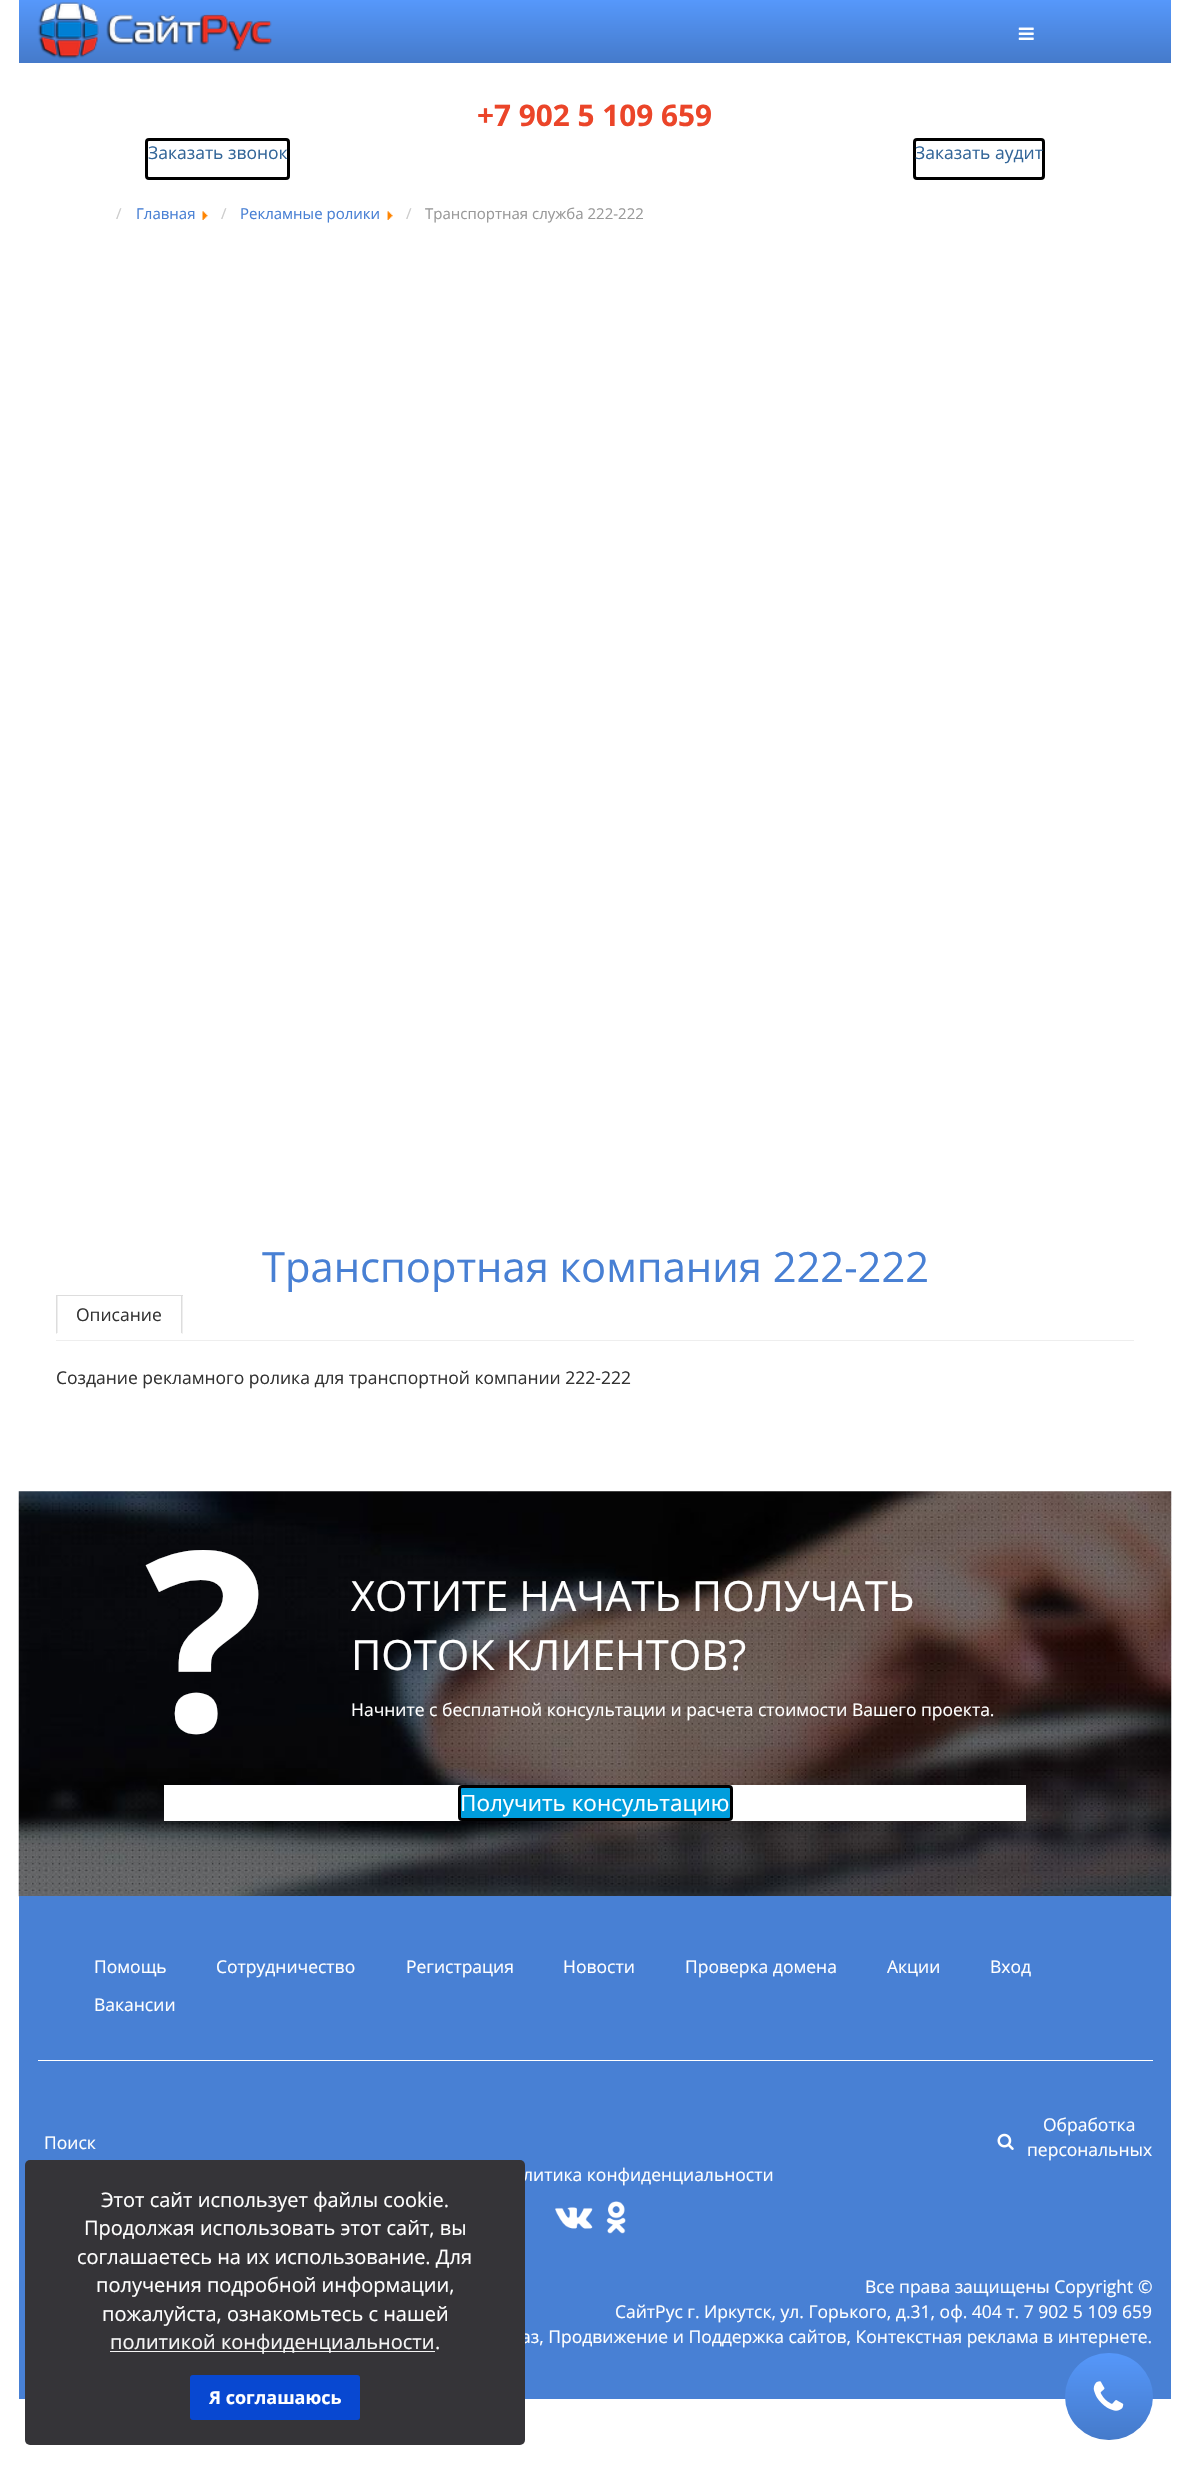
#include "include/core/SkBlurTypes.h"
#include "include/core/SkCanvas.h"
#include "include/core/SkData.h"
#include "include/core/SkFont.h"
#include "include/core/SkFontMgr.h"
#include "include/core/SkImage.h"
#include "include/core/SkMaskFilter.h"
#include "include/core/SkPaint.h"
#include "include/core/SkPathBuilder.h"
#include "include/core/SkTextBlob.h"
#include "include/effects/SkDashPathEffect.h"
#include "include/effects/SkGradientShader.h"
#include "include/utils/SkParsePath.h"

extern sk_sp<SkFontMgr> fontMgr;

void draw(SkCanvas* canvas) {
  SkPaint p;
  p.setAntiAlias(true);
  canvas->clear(SK_ColorWHITE);
  {
    const SkColor colors[] = {SkColorSetRGB(86, 152, 251), SkColorSetRGB(69, 122, 202)};
    const float stops[] = {0, 1};
    const SkPoint ends[] = {{595, 0}, {595, 63}};
    p.setShader(SkGradientShader::MakeLinear(ends, colors, stops, 2, SkTileMode::kClamp));
    p.setAlpha(255);
  }
  canvas->drawRect(SkRect::MakeLTRB(19, 0, 1171, 63), p);
  canvas->drawImageRect(SkImages::DeferredFromEncodedData(SkData::MakeFromFileName("images/1.png")), SkRect::MakeLTRB(37, 2, 272, 59), SkSamplingOptions());
  canvas->drawImageRect(SkImages::DeferredFromEncodedData(SkData::MakeFromFileName("images/2.png")), SkRect::MakeLTRB(1018, 27, 1034, 40), SkSamplingOptions());
  p.setStyle(SkPaint::kStroke_Style);
  p.setStrokeWidth(3);
  p.setShader(nullptr);
  p.setColor(SK_ColorBLACK);
  canvas->drawRoundRect(SkRect::MakeLTRB(146.5f, 139.5f, 288.5f, 178.5f), 2.5f, 2.5f, p);
  canvas->drawRoundRect(SkRect::MakeLTRB(914.5f, 139.5f, 1043.5f, 178.5f), 2.5f, 2.5f, p);
  canvas->drawImageRect(SkImages::DeferredFromEncodedData(SkData::MakeFromFileName("images/3.png")), SkRect::MakeLTRB(202, 211, 208, 220), SkSamplingOptions());
  canvas->drawImageRect(SkImages::DeferredFromEncodedData(SkData::MakeFromFileName("images/4.png")), SkRect::MakeLTRB(387, 211, 393, 220), SkSamplingOptions());
  p.setStyle(SkPaint::kFill_Style);
  p.setColor(SkColorSetRGB(221, 221, 221));
  canvas->drawRect(SkRect::MakeLTRB(56, 1295, 183, 1296), p);
  canvas->drawPath(SkPathBuilder().moveTo(182.5f, 1295).lineTo(182.5f, 1334).lineTo(181, 1332.5f).lineTo(181, 1296).close().detach(), p);
  canvas->drawPath(SkPathBuilder().moveTo(56, 1334).lineTo(56, 1295).lineTo(57.5f, 1296).lineTo(57.5f, 1332.5f).close().detach(), p);
  p.setColor(SkColorSetRGB(238, 238, 238));
  canvas->drawRect(SkRect::MakeLTRB(56, 1340, 1134, 1341), p);
  canvas->drawImageRect(SkImages::DeferredFromEncodedData(SkData::MakeFromFileName("images/5.png")), SkRect::MakeLTRB(18, 1491, 1172, 1897), SkSamplingOptions());
  p.setColor(SK_ColorWHITE);
  canvas->drawRect(SkRect::MakeLTRB(164, 1785, 1026, 1821), p);
  p.setColor(SkColorSetRGB(0, 157, 220));
  canvas->drawRoundRect(SkRect::MakeLTRB(459.5f, 1786.5f, 731.5f, 1819.5f), 2.5f, 2.5f, p);
  p.setStyle(SkPaint::kStroke_Style);
  p.setColor(SK_ColorBLACK);
  canvas->drawRoundRect(SkRect::MakeLTRB(459.5f, 1786.5f, 731.5f, 1819.5f), 2.5f, 2.5f, p);
  p.setStyle(SkPaint::kFill_Style);
  p.setColor(SkColorSetRGB(72, 128, 212));
  canvas->drawRect(SkRect::MakeLTRB(19, 1896, 1171, 2399), p);
  p.setColor(SK_ColorWHITE);
  canvas->drawRect(SkRect::MakeLTRB(38, 2060, 1153, 2061), p);
  canvas->drawImageRect(SkImages::DeferredFromEncodedData(SkData::MakeFromFileName("images/6.png")), SkRect::MakeLTRB(997, 2133, 1014, 2150), SkSamplingOptions());
  canvas->drawImageRect(SkImages::DeferredFromEncodedData(SkData::MakeFromFileName("images/7.png")), SkRect::MakeLTRB(555, 2207, 593, 2229), SkSamplingOptions());
  canvas->drawImageRect(SkImages::DeferredFromEncodedData(SkData::MakeFromFileName("images/8.png")), SkRect::MakeLTRB(606, 2201, 626, 2234), SkSamplingOptions());
  {
    const SkColor colors[] = {SkColorSetRGB(86, 152, 251), SkColorSetRGB(69, 122, 202)};
    const float stops[] = {0, 1};
    const SkPoint ends[] = {{1109, 2352}, {1109, 2440}};
    p.setShader(SkGradientShader::MakeLinear(ends, colors, stops, 2, SkTileMode::kClamp));
    p.setAlpha(255);
  }
  canvas->drawRoundRect(SkRect::MakeLTRB(1065, 2353, 1153, 2440), 43.5f, 43.5f, p);
  canvas->drawImageRect(SkImages::DeferredFromEncodedData(SkData::MakeFromFileName("images/9.png")), SkRect::MakeLTRB(1093, 2381, 1124, 2411), SkSamplingOptions());
  SkFont font1(fontMgr->matchFamilyStyle("Open Sans", SkFontStyle::Bold()), 29.75f);
  font1.setSubpixel(true);
  p.setShader(nullptr);
  p.setColor(SkColorSetRGB(235, 69, 41));
  canvas->drawString("+7 902 5 109 659", 477, 126, font1, p);
  SkFont font2(fontMgr->matchFamilyStyle("Open Sans", SkFontStyle::Normal()), 17.5f);
  font2.setSubpixel(true);
  p.setColor(SkColorSetRGB(51, 102, 153));
  canvas->drawString("Заказать звонок", 148, 159, font2, p);
  canvas->drawString("Заказать аудит", 915, 159, font2, p);
  SkFont font3(fontMgr->matchFamilyStyle("Open Sans", SkFontStyle::Normal()), 15);
  font3.setSubpixel(true);
  p.setColor(SkColorSetRGB(204, 204, 204));
  canvas->drawString("/", 116, 219, font3, p);
  p.setColor(SkColorSetRGB(72, 128, 212));
  canvas->drawString("Главная", 136, 219, font3, p);
  p.setColor(SkColorSetRGB(204, 204, 204));
  canvas->drawString("/", 221, 219, font3, p);
  p.setColor(SkColorSetRGB(72, 128, 212));
  canvas->drawString("Рекламные ролики", 240, 219, font3, p);
  p.setColor(SkColorSetRGB(204, 204, 204));
  canvas->drawString("/", 406, 219, font3, p);
  p.setColor(SkColorSetRGB(153, 153, 153));
  canvas->drawString("Транспортная служба 222-222", 425, 219, font3, p);
  SkFont font4(fontMgr->matchFamilyStyle("Open Sans", SkFontStyle::Normal()), 41.7f);
  font4.setSubpixel(true);
  p.setColor(SkColorSetRGB(72, 128, 212));
  canvas->drawString("Транспортная компания 222-222", 262, 1282, font4, p);
  p.setColor(SkColorSetRGB(51, 51, 51));
  canvas->drawString("Описание", 76, 1321, font2, p);
  canvas->drawString("Создание рекламного ролика для транспортной компании 222-222", 56, 1384, font2, p);
  SkFont font5(fontMgr->matchFamilyStyle("Open Sans", SkFontStyle::Bold()), 250);
  font5.setSubpixel(true);
  p.setColor(SK_ColorWHITE);
  canvas->drawString("?", 145, 1731, font5, p);
  canvas->drawString("ХОТИТЕ НАЧАТЬ ПОЛУЧАТЬ", 351, 1611, font4, p);
  canvas->drawString("ПОТОК КЛИЕНТОВ?", 351, 1670, font4, p);
  canvas->drawString("Начните с бесплатной консультации и расчета стоимости Вашего проекта.", 351, 1716, font2, p);
  SkFont font6(fontMgr->matchFamilyStyle("Open Sans", SkFontStyle::Normal()), 22.5f);
  font6.setSubpixel(true);
  canvas->drawString("Получить консультацию", 460, 1811, font6, p);
  canvas->drawString("Помощь", 94, 1973, font2, p);
  canvas->drawString("Сотрудничество", 216, 1973, font2, p);
  canvas->drawString("Регистрация", 406, 1973, font2, p);
  canvas->drawString("Новости", 563, 1973, font2, p);
  canvas->drawString("Проверка домена", 685, 1973, font2, p);
  canvas->drawString("Акции", 887, 1973, font2, p);
  canvas->drawString("Вход", 990, 1973, font2, p);
  canvas->drawString("Вакансии", 94, 2011, font2, p);
  canvas->drawString("Поиск", 44, 2149, font2, p);
  canvas->drawString("Обработка", 1043, 2131, font2, p);
  canvas->drawString("персональных", 1027, 2156, font2, p);
  canvas->drawString("литика конфиденциальности", 523, 2181, font2, p);
  canvas->drawString("Все права защищены Copyright ©", 865, 2293, font2, p);
  canvas->drawString("СайтРус г. Иркутск, ул. Горького, д.31, оф. 404 т. 7 902 5 109 659", 615, 2318, font2, p);
  canvas->drawString("аз, Продвижение и Поддержка сайтов, Контекстная реклама в интернете.", 521, 2343, font2, p);
  p.setColor(SkColorSetRGB(53, 52, 56));
  canvas->drawRoundRect(SkRect::MakeLTRB(25, 2160, 525, 2445), 5, 5, p);
  SkFont font7(fontMgr->matchFamilyStyle("Open Sans", SkFontStyle::Normal()), 20);
  font7.setSubpixel(true);
  p.setColor(SK_ColorWHITE);
  canvas->drawString("Этот сайт использует файлы cookie.", 101, 2207, font7, p);
  canvas->drawString("Продолжая использовать этот сайт, вы", 84, 2235, font7, p);
  canvas->drawString("соглашаетесь на их использование. Для", 77, 2264, font7, p);
  canvas->drawString("получения подробной информации,", 96, 2292, font7, p);
  canvas->drawString("пожалуйста, ознакомьтесь с нашей", 102, 2321, font7, p);
  p.setColor(SkColorSetRGB(245, 245, 245));
  canvas->drawRect(SkRect::MakeLTRB(110, 2351, 435, 2352), p);
  canvas->drawString("политикой конфиденциальности", 110, 2349, font7, p);
  p.setColor(SK_ColorWHITE);
  canvas->drawString(".", 435, 2349, font7, p);
  p.setColor(SkColorSetRGB(8, 72, 209));
  canvas->drawRoundRect(SkRect::MakeLTRB(190, 2375, 360, 2420), 3, 3, p);
  SkFont font8(fontMgr->matchFamilyStyle("Open Sans", SkFontStyle::Bold()), 18);
  font8.setSubpixel(true);
  p.setColor(SK_ColorWHITE);
  canvas->drawString("Я соглашаюсь", 209, 2404, font8, p);
}
